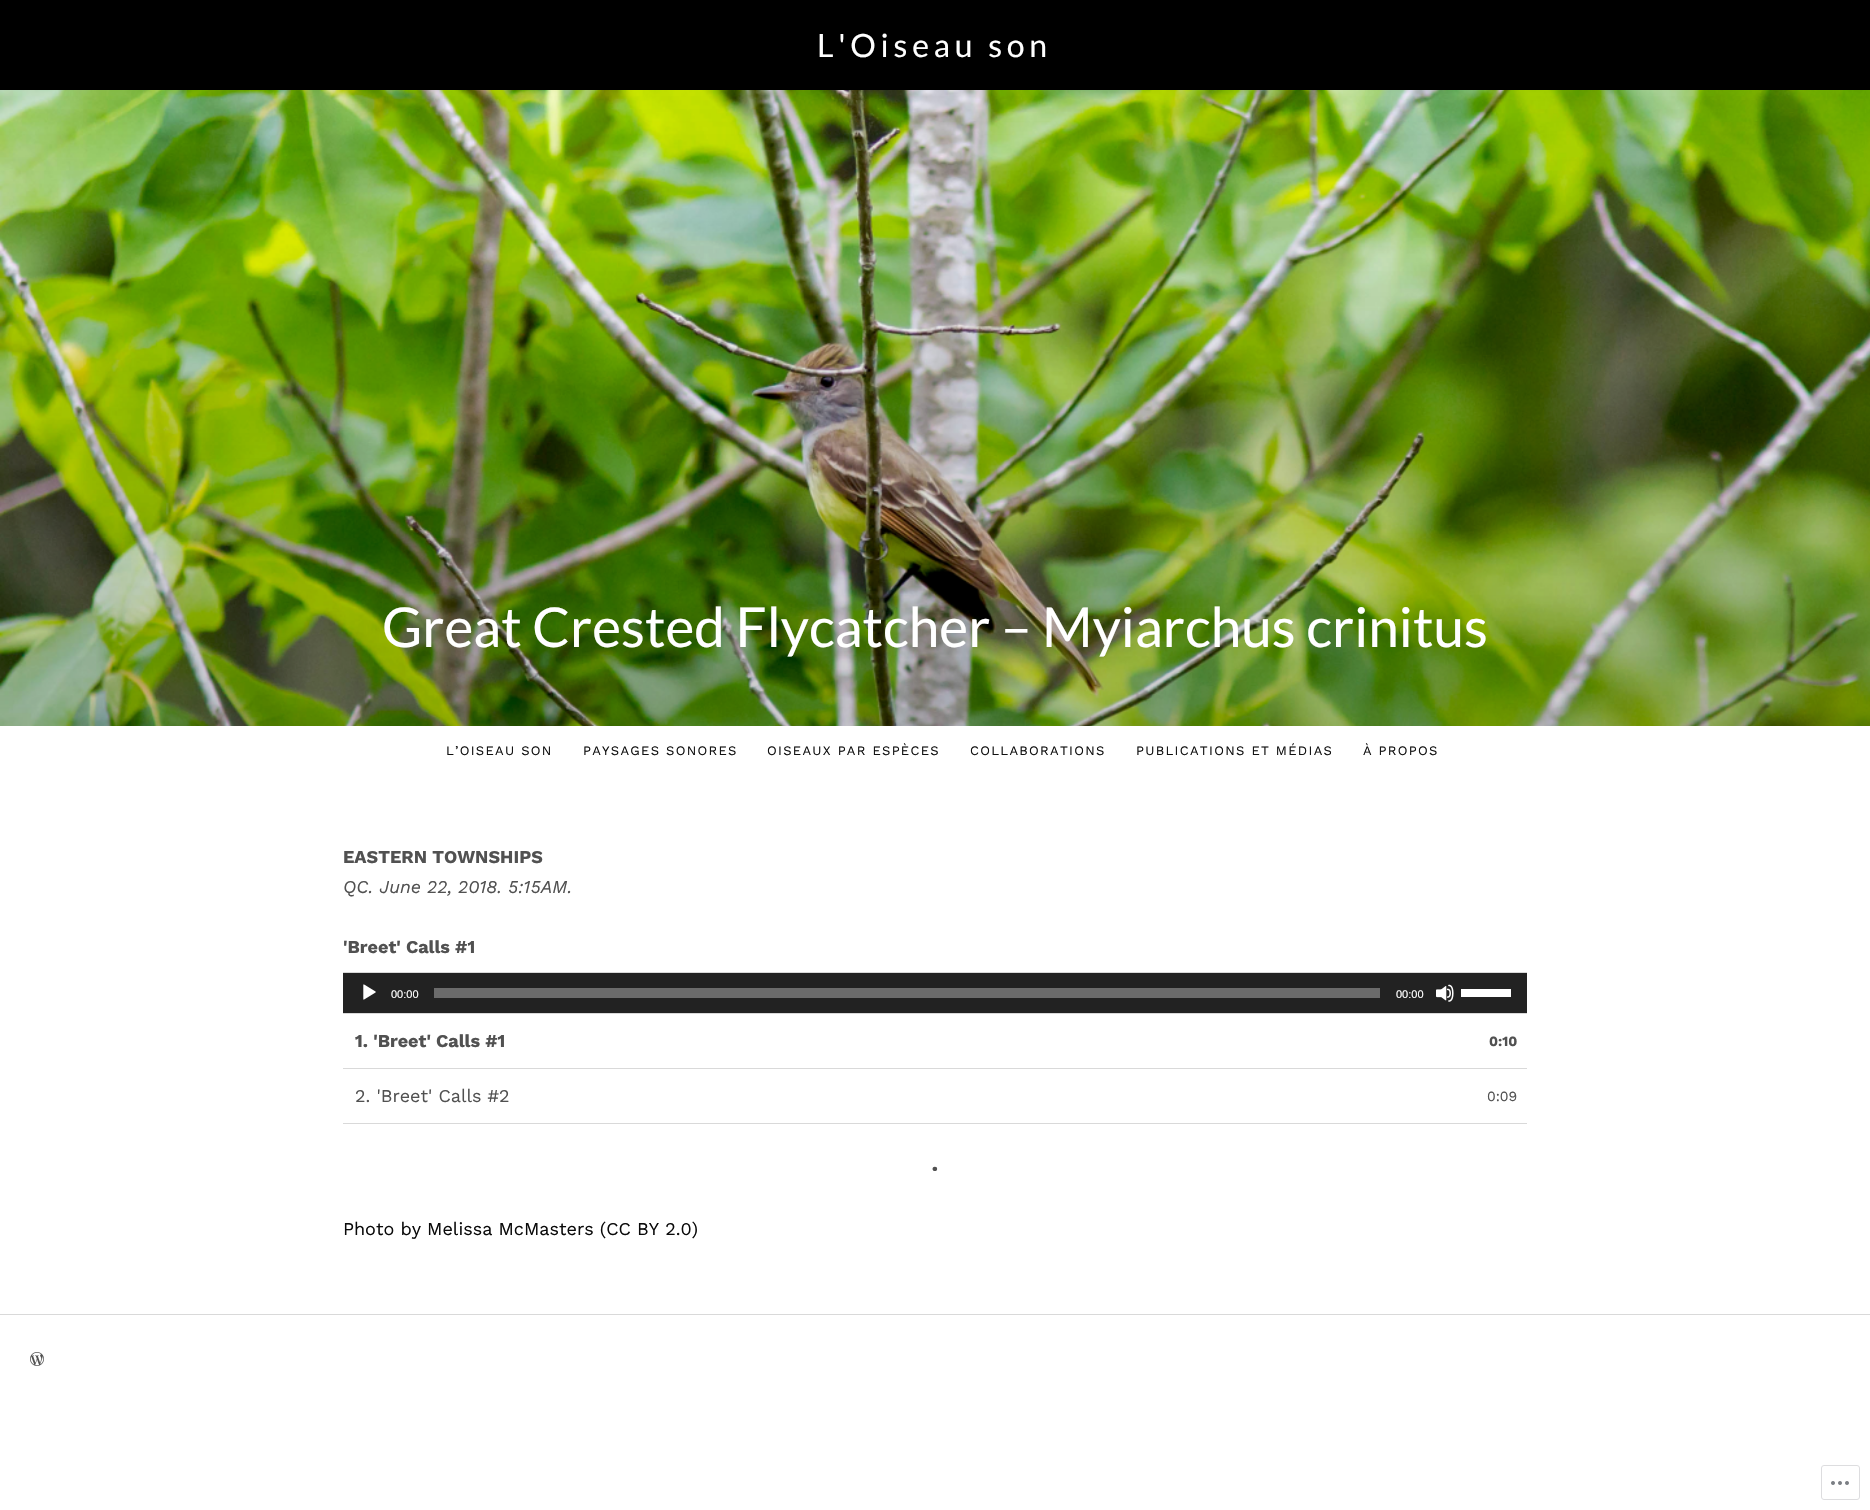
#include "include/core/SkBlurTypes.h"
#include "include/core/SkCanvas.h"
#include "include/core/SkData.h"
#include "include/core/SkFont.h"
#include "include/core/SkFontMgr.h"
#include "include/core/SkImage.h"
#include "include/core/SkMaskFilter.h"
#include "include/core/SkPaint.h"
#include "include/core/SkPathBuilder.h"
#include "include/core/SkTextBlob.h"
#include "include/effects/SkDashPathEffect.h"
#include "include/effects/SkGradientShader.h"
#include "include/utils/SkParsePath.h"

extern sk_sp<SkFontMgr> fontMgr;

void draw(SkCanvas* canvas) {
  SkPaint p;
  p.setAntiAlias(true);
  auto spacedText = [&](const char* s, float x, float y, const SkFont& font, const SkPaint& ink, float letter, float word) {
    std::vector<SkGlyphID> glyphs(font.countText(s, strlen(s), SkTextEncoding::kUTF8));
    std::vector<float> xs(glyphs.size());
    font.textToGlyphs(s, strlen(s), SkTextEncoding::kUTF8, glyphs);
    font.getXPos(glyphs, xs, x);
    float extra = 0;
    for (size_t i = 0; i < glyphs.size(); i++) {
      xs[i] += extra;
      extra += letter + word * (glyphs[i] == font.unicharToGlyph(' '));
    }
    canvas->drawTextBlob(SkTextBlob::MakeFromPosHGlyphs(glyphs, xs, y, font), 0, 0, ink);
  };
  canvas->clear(SK_ColorWHITE);
  p.setColor(SK_ColorBLACK);
  canvas->drawRect(SkRect::MakeLTRB(0, 0, 1870, 90), p);
  canvas->drawImageRect(SkImages::DeferredFromEncodedData(SkData::MakeFromFileName("images/1.png")), SkRect::MakeLTRB(0, 90, 1870, 726), SkSamplingOptions());
  p.setColor(SkColorSetRGB(217, 217, 217));
  canvas->drawRect(SkRect::MakeLTRB(343, 972, 1527, 973), p);
  p.setColor(SkColorSetRGB(34, 34, 34));
  canvas->drawRect(SkRect::MakeLTRB(343, 973, 1527, 1013), p);
  canvas->drawImageRect(SkImages::DeferredFromEncodedData(SkData::MakeFromFileName("images/2.png")), SkRect::MakeLTRB(363, 984, 376, 1000), SkSamplingOptions());
  p.setColor(SkColorSetRGB(107, 107, 107));
  canvas->drawRect(SkRect::MakeLTRB(434, 988, 1380, 998), p);
  canvas->drawImageRect(SkImages::DeferredFromEncodedData(SkData::MakeFromFileName("images/3.png")), SkRect::MakeLTRB(1436, 984, 1454, 1002), SkSamplingOptions());
  p.setColor(SK_ColorWHITE);
  canvas->drawRect(SkRect::MakeLTRB(1461, 989, 1511, 997), p);
  p.setColor(SkColorSetRGB(217, 217, 217));
  canvas->drawRect(SkRect::MakeLTRB(343, 1013, 1527, 1014), p);
  canvas->drawRect(SkRect::MakeLTRB(343, 1068, 1527, 1069), p);
  canvas->drawRect(SkRect::MakeLTRB(343, 1123, 1527, 1124), p);
  canvas->drawRect(SkRect::MakeLTRB(0, 1314, 1870, 1315), p);
  canvas->drawImageRect(SkImages::DeferredFromEncodedData(SkData::MakeFromFileName("images/4.png")), SkRect::MakeLTRB(30, 1352, 44, 1366), SkSamplingOptions());
  p.setStyle(SkPaint::kStroke_Style);
  p.setStrokeWidth(1);
  p.setColor(SkColorSetRGB(221, 221, 223));
  canvas->drawRoundRect(SkRect::MakeLTRB(1821.5f, 1465.5f, 1859.5f, 1499.5f), 2.5f, 2.5f, p);
  canvas->drawImageRect(SkImages::DeferredFromEncodedData(SkData::MakeFromFileName("images/5.png")), SkRect::MakeLTRB(1831, 1481, 1849, 1485), SkSamplingOptions());
  SkFont font1(fontMgr->matchFamilyStyle("Lato", SkFontStyle::Normal()), 32);
  font1.setSubpixel(true);
  p.setStyle(SkPaint::kFill_Style);
  p.setColor(SK_ColorWHITE);
  spacedText("L'Oiseau son", 817, 57, font1, p, 4.75f, 0);
  SkFont font2(fontMgr->matchFamilyStyle("Lato", SkFontStyle::Normal()), 55);
  font2.setSubpixel(true);
  canvas->drawString("Great Crested Flycatcher – Myiarchus crinitus", 382, 647, font2, p);
  SkFont font3(fontMgr->matchFamilyStyle("Work Sans", SkFontStyle::Normal()), 13);
  font3.setSubpixel(true);
  p.setColor(SkColorSetRGB(17, 17, 17));
  spacedText("L’OISEAU SON", 446, 755, font3, p, 1.3f, 0);
  spacedText("PAYSAGES SONORES", 583, 755, font3, p, 1.3f, 0);
  spacedText("OISEAUX PAR ESPÈCES", 767, 755, font3, p, 1.3f, 0);
  spacedText("COLLABORATIONS", 970, 755, font3, p, 1.3f, 0);
  spacedText("PUBLICATIONS ET MÉDIAS", 1136, 755, font3, p, 1.3f, 0);
  spacedText("À PROPOS", 1363, 755, font3, p, 1.3f, 0);
  SkFont font4(fontMgr->matchFamilyStyle("Work Sans", SkFontStyle::Bold()), 18);
  font4.setSubpixel(true);
  p.setColor(SkColorSetRGB(81, 81, 81));
  canvas->drawString("EASTERN TOWNSHIPS", 343, 863, font4, p);
  SkFont font5(fontMgr->matchFamilyStyle("Work Sans", SkFontStyle::Italic()), 18);
  font5.setSubpixel(true);
  canvas->drawString("QC. June 22, 2018. 5:15AM.", 343, 893, font5, p);
  canvas->drawString("'Breet' Calls #1", 343, 953, font4, p);
  SkFont font6(fontMgr->matchFamilyStyle("Liberation Sans", SkFontStyle::Normal()), 11);
  font6.setSubpixel(true);
  p.setColor(SK_ColorWHITE);
  canvas->drawString("00:00", 391, 998, font6, p);
  canvas->drawString("00:00", 1396, 998, font6, p);
  p.setColor(SkColorSetRGB(81, 81, 81));
  canvas->drawString("1. 'Breet' Calls #1", 355, 1047, font4, p);
  SkFont font7(fontMgr->matchFamilyStyle("Work Sans", SkFontStyle::Bold()), 14);
  font7.setSubpixel(true);
  canvas->drawString("0:10", 1489, 1046, font7, p);
  SkFont font8(fontMgr->matchFamilyStyle("Work Sans", SkFontStyle::Normal()), 18);
  font8.setSubpixel(true);
  canvas->drawString("2. 'Breet' Calls #2", 355, 1102, font8, p);
  SkFont font9(fontMgr->matchFamilyStyle("Work Sans", SkFontStyle::Normal()), 14);
  font9.setSubpixel(true);
  canvas->drawString("0:09", 1487, 1101, font9, p);
  canvas->drawString("•", 931, 1175, font8, p);
  p.setColor(SkColorSetRGB(10, 10, 10));
  canvas->drawString("Photo by Melissa McMasters (CC BY 2.0)", 343, 1235, font8, p);
}
